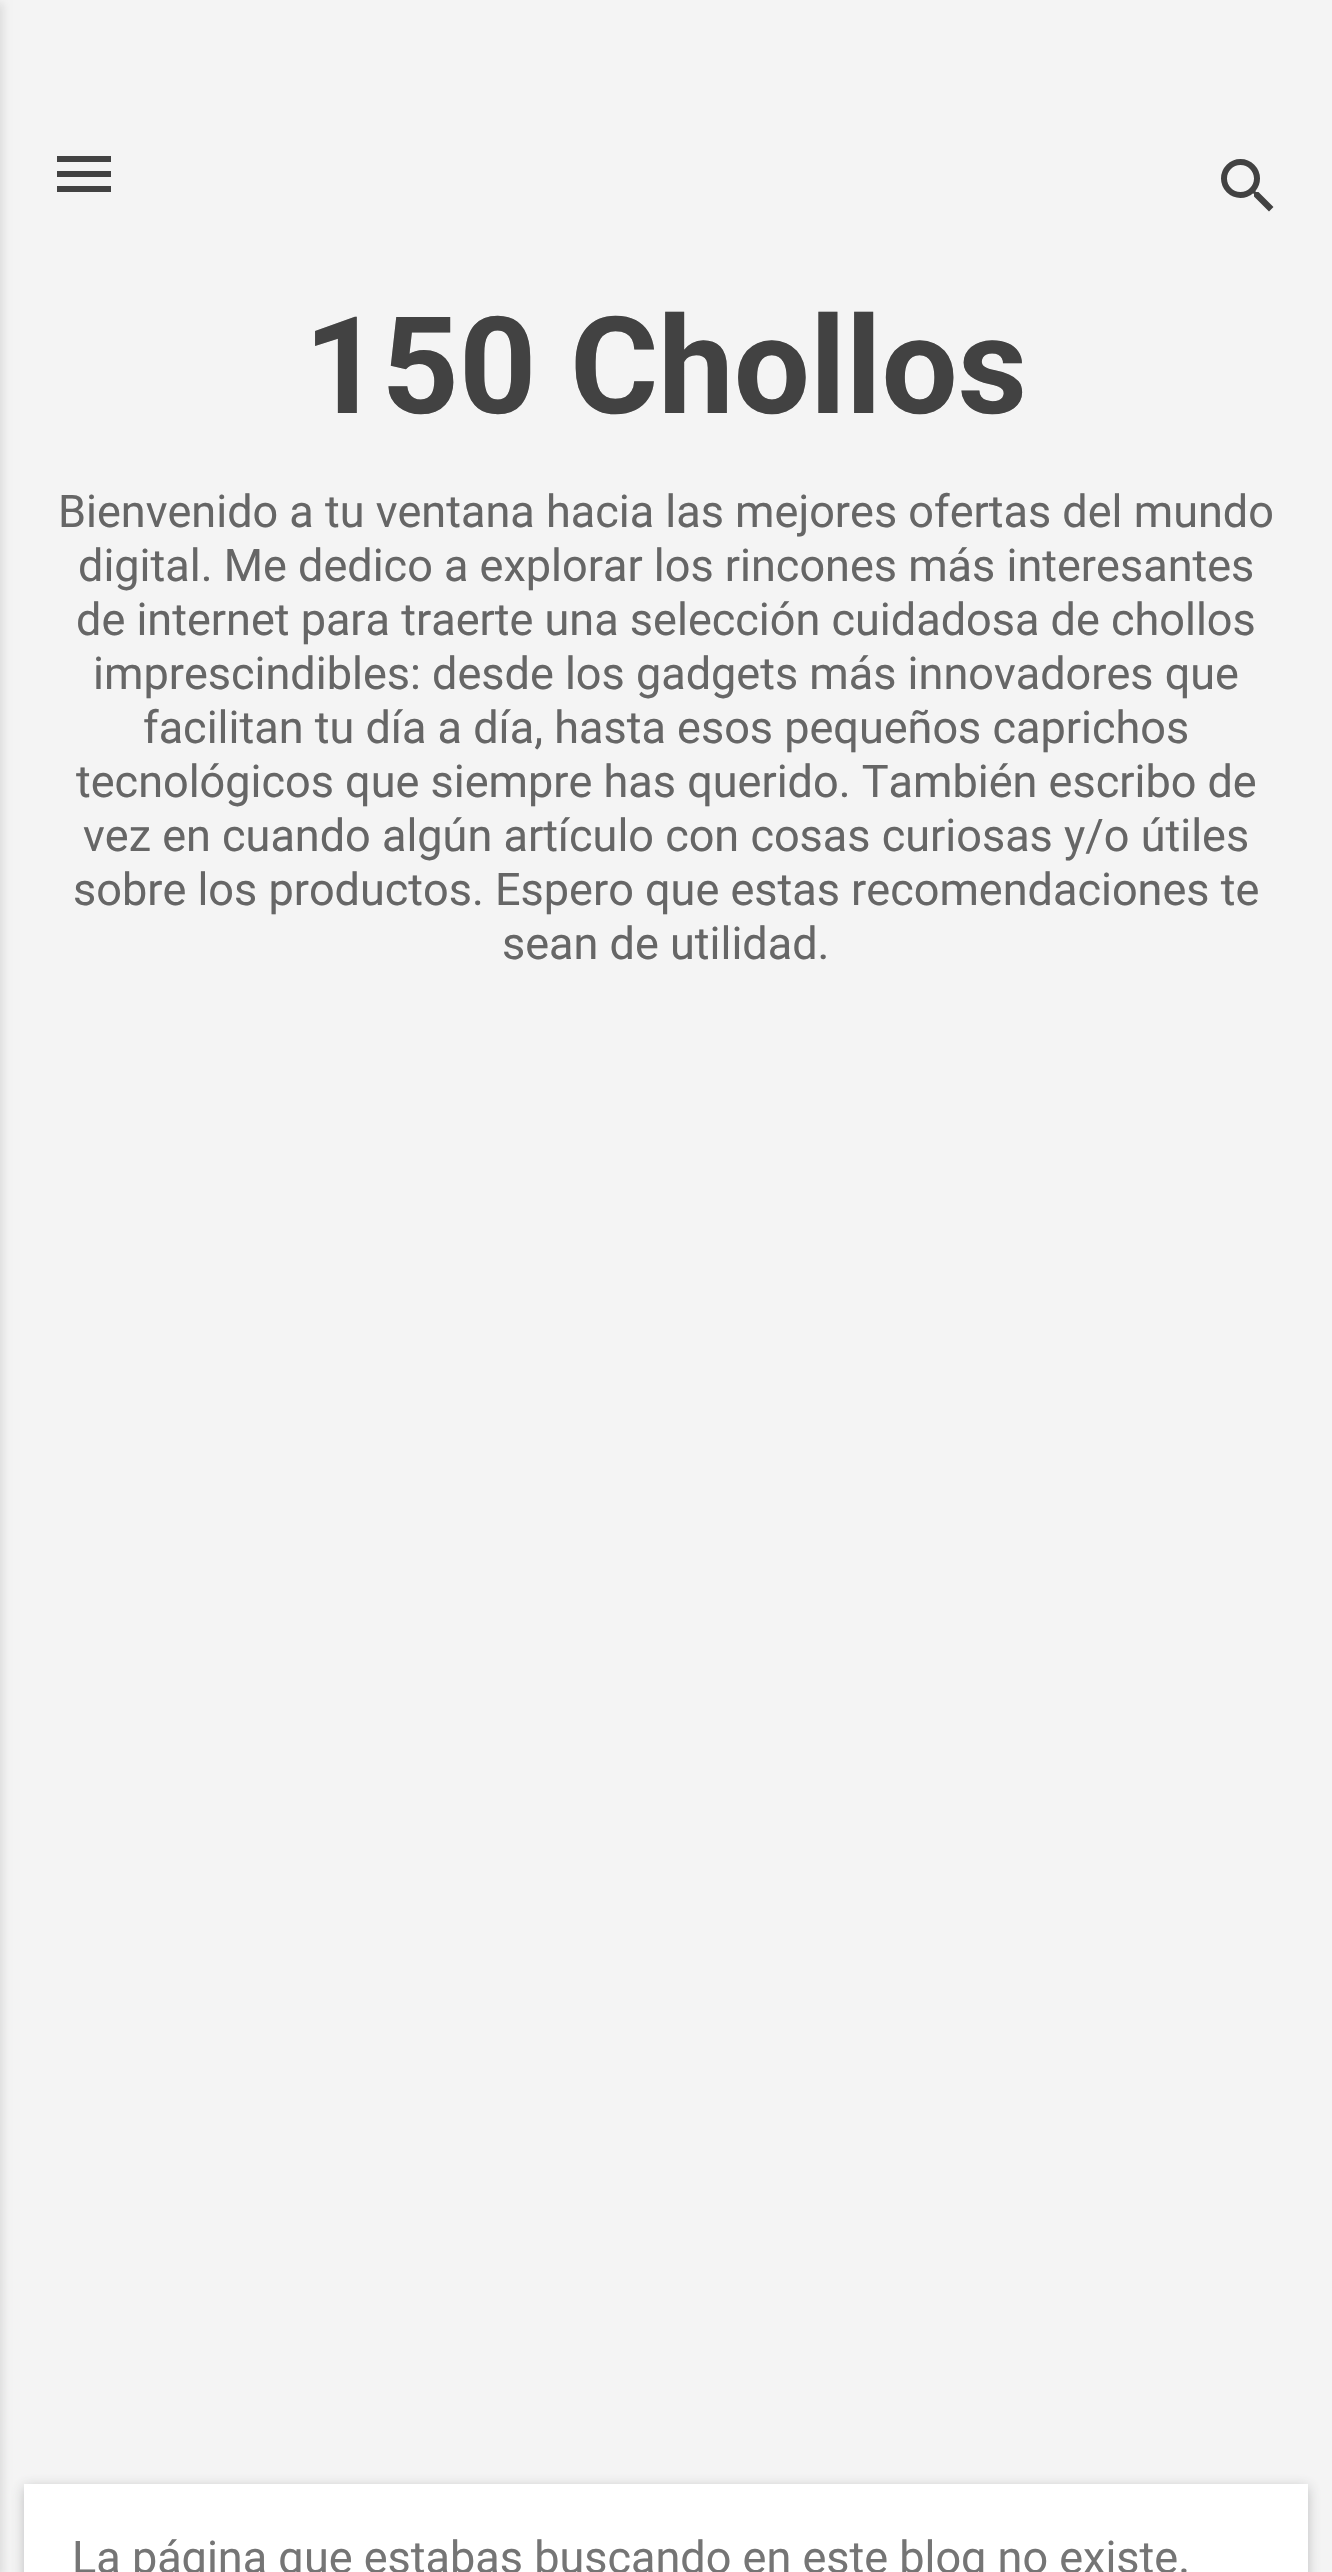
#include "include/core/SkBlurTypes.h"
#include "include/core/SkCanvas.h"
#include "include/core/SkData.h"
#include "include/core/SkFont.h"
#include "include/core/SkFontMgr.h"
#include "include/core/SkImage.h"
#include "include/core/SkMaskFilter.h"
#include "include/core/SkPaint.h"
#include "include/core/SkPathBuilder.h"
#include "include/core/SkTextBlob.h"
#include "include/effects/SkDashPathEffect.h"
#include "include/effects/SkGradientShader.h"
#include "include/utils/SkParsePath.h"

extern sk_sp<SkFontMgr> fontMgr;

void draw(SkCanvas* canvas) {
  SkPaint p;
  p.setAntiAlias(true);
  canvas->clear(SkColorSetRGB(244, 244, 244));
  p.setColor(SkColorSetARGB(26, 0, 0, 0));
  p.setMaskFilter(SkMaskFilter::MakeBlur(kNormal_SkBlurStyle, 4.5f));
  canvas->drawRect(SkRect::MakeLTRB(-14, 3, 3, 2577), p);
  p.setMaskFilter(nullptr);
  canvas->drawImageRect(SkImages::DeferredFromEncodedData(SkData::MakeFromFileName("images/1.png")), SkRect::MakeLTRB(57, 156, 111, 192), SkSamplingOptions());
  canvas->drawImageRect(SkImages::DeferredFromEncodedData(SkData::MakeFromFileName("images/2.png")), SkRect::MakeLTRB(1221, 159, 1274, 212), SkSamplingOptions());
  p.setColor(SkColorSetARGB(77, 60, 64, 67));
  p.setMaskFilter(SkMaskFilter::MakeBlur(kNormal_SkBlurStyle, 6));
  canvas->drawRect(SkRect::MakeLTRB(24, 2487, 1308, 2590), p);
  p.setMaskFilter(nullptr);
  p.setColor(SK_ColorWHITE);
  canvas->drawRect(SkRect::MakeLTRB(24, 2484, 1308, 2572), p);
  SkFont font1(fontMgr->matchFamilyStyle("Roboto", SkFontStyle::Bold()), 135);
  font1.setSubpixel(true);
  p.setColor(SkColorSetRGB(66, 66, 66));
  canvas->drawString("150 Chollos", 304, 413, font1, p);
  SkFont font2(fontMgr->matchFamilyStyle("Roboto", SkFontStyle::Normal()), 45);
  font2.setSubpixel(true);
  p.setColor(SkColorSetRGB(102, 102, 102));
  canvas->drawString("Bienvenido a tu ventana hacia las mejores ofertas del mundo", 58, 527, font2, p);
  canvas->drawString("digital. Me dedico a explorar los rincones más interesantes", 78, 581, font2, p);
  canvas->drawString("de internet para traerte una selección cuidadosa de chollos", 76, 635, font2, p);
  canvas->drawString("imprescindibles: desde los gadgets más innovadores que", 93, 689, font2, p);
  canvas->drawString("facilitan tu día a día, hasta esos pequeños caprichos", 143, 743, font2, p);
  canvas->drawString("tecnológicos que siempre has querido. También escribo de", 76, 797, font2, p);
  canvas->drawString("vez en cuando algún artículo con cosas curiosas y/o útiles", 83, 851, font2, p);
  canvas->drawString("sobre los productos. Espero que estas recomendaciones te", 73, 905, font2, p);
  canvas->drawString("sean de utilidad.", 502, 959, font2, p);
  p.setColor(SkColorSetRGB(117, 117, 117));
  canvas->drawString("La página que estabas buscando en este blog no existe.", 72, 2573, font2, p);
}
